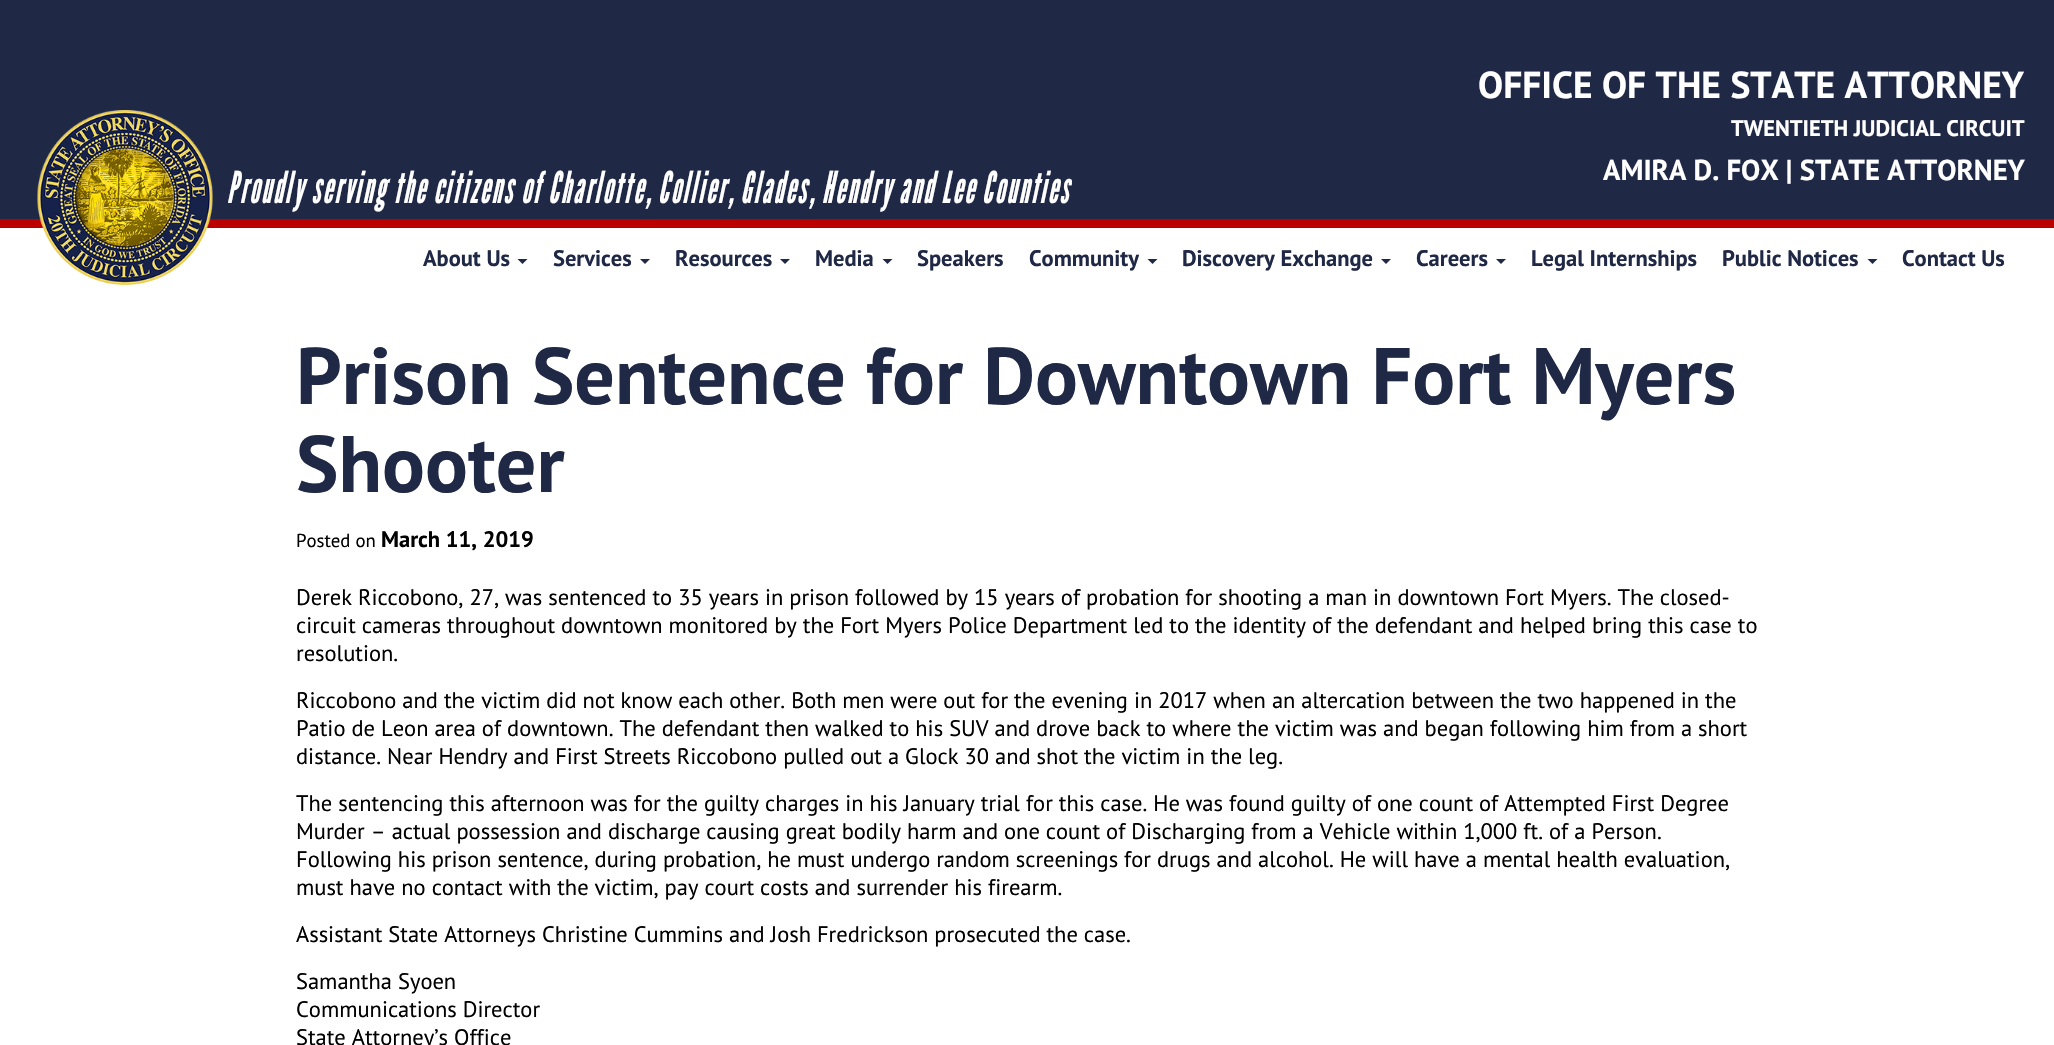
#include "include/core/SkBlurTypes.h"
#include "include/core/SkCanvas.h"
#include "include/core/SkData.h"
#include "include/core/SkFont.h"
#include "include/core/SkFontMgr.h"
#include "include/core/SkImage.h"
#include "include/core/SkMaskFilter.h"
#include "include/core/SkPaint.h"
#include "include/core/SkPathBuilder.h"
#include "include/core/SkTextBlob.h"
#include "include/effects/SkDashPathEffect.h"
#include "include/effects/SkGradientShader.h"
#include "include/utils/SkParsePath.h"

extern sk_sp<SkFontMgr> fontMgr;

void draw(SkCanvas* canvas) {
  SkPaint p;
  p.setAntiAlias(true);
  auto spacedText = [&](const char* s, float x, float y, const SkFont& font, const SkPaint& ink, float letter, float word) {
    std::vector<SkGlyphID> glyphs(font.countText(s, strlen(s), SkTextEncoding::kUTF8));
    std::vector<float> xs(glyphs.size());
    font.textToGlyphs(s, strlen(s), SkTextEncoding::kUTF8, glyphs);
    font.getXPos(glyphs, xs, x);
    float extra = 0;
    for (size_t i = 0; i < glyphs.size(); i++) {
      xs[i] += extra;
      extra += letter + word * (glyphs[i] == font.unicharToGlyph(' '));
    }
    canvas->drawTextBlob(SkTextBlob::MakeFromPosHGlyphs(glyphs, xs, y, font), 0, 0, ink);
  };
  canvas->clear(SK_ColorWHITE);
  p.setColor(SkColorSetRGB(31, 40, 69));
  canvas->drawRect(SkRect::MakeLTRB(0, 0, 2054, 219), p);
  p.setColor(SkColorSetRGB(188, 0, 0));
  canvas->drawRect(SkRect::MakeLTRB(0, 219, 2054, 228), p);
  canvas->drawImageRect(SkImages::DeferredFromEncodedData(SkData::MakeFromFileName("images/1.png")), SkRect::MakeLTRB(37, 110, 213, 285), SkSamplingOptions());
  p.setColor(SkColorSetRGB(31, 40, 69));
  canvas->drawPath(SkPathBuilder().moveTo(517.5f, 259).lineTo(527.5f, 259).lineTo(522.5f, 264).close().detach(), p);
  canvas->drawPath(SkPathBuilder().moveTo(640, 259).lineTo(650, 259).lineTo(645, 264).close().detach(), p);
  canvas->drawPath(SkPathBuilder().moveTo(780, 259).lineTo(790, 259).lineTo(785, 264).close().detach(), p);
  canvas->drawPath(SkPathBuilder().moveTo(882.5f, 259).lineTo(892.5f, 259).lineTo(887.5f, 264).close().detach(), p);
  canvas->drawPath(SkPathBuilder().moveTo(1147.5f, 259).lineTo(1157.5f, 259).lineTo(1152.5f, 264).close().detach(), p);
  canvas->drawPath(SkPathBuilder().moveTo(1381, 259).lineTo(1391, 259).lineTo(1386, 264).close().detach(), p);
  canvas->drawPath(SkPathBuilder().moveTo(1496, 259).lineTo(1506, 259).lineTo(1501, 264).close().detach(), p);
  canvas->drawPath(SkPathBuilder().moveTo(1867.5f, 259).lineTo(1877.5f, 259).lineTo(1872.5f, 264).close().detach(), p);
  SkFont font1(fontMgr->matchFamilyStyle("PT Sans", SkFontStyle::Bold()), 37.5f);
  font1.setSubpixel(true);
  p.setColor(SK_ColorWHITE);
  canvas->drawString("OFFICE OF THE STATE ATTORNEY", 1478, 98, font1, p);
  SkFont font2(fontMgr->matchFamilyStyle("PT Sans", SkFontStyle::Bold()), 22.5f);
  font2.setSubpixel(true);
  canvas->drawString("TWENTIETH JUDICIAL CIRCUIT", 1731, 136, font2, p);
  SkFont font3(fontMgr->matchFamilyStyle("PT Sans", SkFontStyle::Bold()), 28.75f);
  font3.setSubpixel(true);
  canvas->drawString("AMIRA D. FOX | STATE ATTORNEY", 1603, 180, font3, p);
  SkFont font4(fontMgr->matchFamilyStyle("League Gothic", SkFontStyle::Normal()), 43.75f);
  font4.setSubpixel(true);
  spacedText("Proudly serving the citizens of Charlotte, Collier, Glades, Hendry and Lee Counties", 229, 203, font4, p, 1.88f, 0);
  p.setColor(SkColorSetRGB(31, 40, 69));
  canvas->drawString("About Us", 423, 266, font2, p);
  canvas->drawString("Services", 553, 266, font2, p);
  canvas->drawString("Resources", 675, 266, font2, p);
  canvas->drawString("Media", 815, 266, font2, p);
  canvas->drawString("Speakers", 917, 266, font2, p);
  canvas->drawString("Community", 1029, 266, font2, p);
  canvas->drawString("Discovery Exchange", 1182, 266, font2, p);
  canvas->drawString("Careers", 1416, 266, font2, p);
  canvas->drawString("Legal Internships", 1531, 266, font2, p);
  canvas->drawString("Public Notices", 1722, 266, font2, p);
  canvas->drawString("Contact Us", 1902, 266, font2, p);
  SkFont font5(fontMgr->matchFamilyStyle("PT Sans", SkFontStyle::Bold()), 80);
  font5.setSubpixel(true);
  canvas->drawString("Prison Sentence for Downtown Fort Myers", 296, 404, font5, p);
  canvas->drawString("Shooter", 296, 492, font5, p);
  SkFont font6(fontMgr->matchFamilyStyle("PT Sans", SkFontStyle::Normal()), 18.75f);
  font6.setSubpixel(true);
  p.setColor(SK_ColorBLACK);
  canvas->drawString("Posted on", 296, 547, font6, p);
  canvas->drawString("March 11, 2019", 381, 547, font2, p);
  SkFont font7(fontMgr->matchFamilyStyle("PT Sans", SkFontStyle::Normal()), 22.5f);
  font7.setSubpixel(true);
  canvas->drawString("Derek Riccobono, 27, was sentenced to 35 years in prison followed by 15 years of probation for shooting a man in downtown Fort Myers. The closed-", 296, 605, font7, p);
  canvas->drawString("circuit cameras throughout downtown monitored by the Fort Myers Police Department led to the identity of the defendant and helped bring this case to", 296, 633, font7, p);
  canvas->drawString("resolution.", 296, 661, font7, p);
  canvas->drawString("Riccobono and the victim did not know each other. Both men were out for the evening in 2017 when an altercation between the two happened in the", 296, 708, font7, p);
  canvas->drawString("Patio de Leon area of downtown. The defendant then walked to his SUV and drove back to where the victim was and began following him from a short", 296, 736, font7, p);
  canvas->drawString("distance. Near Hendry and First Streets Riccobono pulled out a Glock 30 and shot the victim in the leg.", 296, 764, font7, p);
  canvas->drawString("The sentencing this afternoon was for the guilty charges in his January trial for this case. He was found guilty of one count of Attempted First Degree", 296, 811, font7, p);
  canvas->drawString("Murder – actual possession and discharge causing great bodily harm and one count of Discharging from a Vehicle within 1,000 ft. of a Person.", 296, 839, font7, p);
  canvas->drawString("Following his prison sentence, during probation, he must undergo random screenings for drugs and alcohol. He will have a mental health evaluation,", 296, 867, font7, p);
  canvas->drawString("must have no contact with the victim, pay court costs and surrender his firearm.", 296, 895, font7, p);
  canvas->drawString("Assistant State Attorneys Christine Cummins and Josh Fredrickson prosecuted the case.", 296, 942, font7, p);
  canvas->drawString("Samantha Syoen", 296, 989, font7, p);
  canvas->drawString("Communications Director", 296, 1017, font7, p);
  canvas->drawString("State Attorney’s Office", 296, 1045, font7, p);
}
